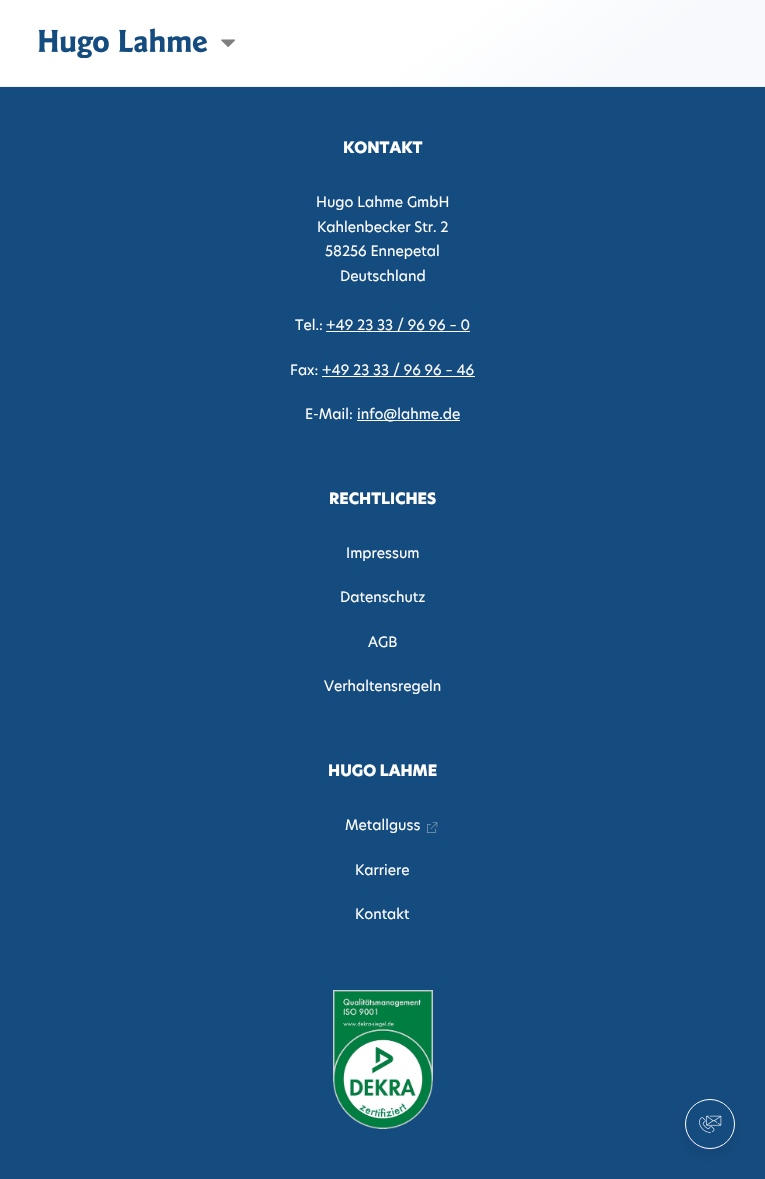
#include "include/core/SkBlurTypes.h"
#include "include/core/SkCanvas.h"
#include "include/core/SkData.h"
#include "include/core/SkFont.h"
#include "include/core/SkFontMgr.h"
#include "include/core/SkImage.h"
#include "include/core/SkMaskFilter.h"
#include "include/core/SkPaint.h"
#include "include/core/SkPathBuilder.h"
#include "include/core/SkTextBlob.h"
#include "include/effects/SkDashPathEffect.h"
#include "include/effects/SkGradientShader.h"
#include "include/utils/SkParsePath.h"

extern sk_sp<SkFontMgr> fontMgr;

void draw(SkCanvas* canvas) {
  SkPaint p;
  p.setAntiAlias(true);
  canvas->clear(SkColorSetRGB(21, 76, 128));
  {
    const SkColor colors[] = {SK_ColorWHITE, SkColorSetRGB(247, 249, 252)};
    const float stops[] = {0.55f, 0.81f};
    const SkPoint ends[] = {{236, -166}, {529, 252}};
    p.setShader(SkGradientShader::MakeLinear(ends, colors, stops, 2, SkTileMode::kClamp));
    p.setAlpha(255);
  }
  canvas->drawRect(SkRect::MakeLTRB(0, 0, 765, 86), p);
  p.setShader(nullptr);
  p.setColor(SkColorSetRGB(240, 240, 240));
  canvas->drawRect(SkRect::MakeLTRB(0, 86, 765, 87), p);
  canvas->drawImageRect(SkImages::DeferredFromEncodedData(SkData::MakeFromFileName("images/1.png")), SkRect::MakeLTRB(38, 28, 208, 58), SkSamplingOptions());
  canvas->drawImageRect(SkImages::DeferredFromEncodedData(SkData::MakeFromFileName("images/2.png")), SkRect::MakeLTRB(221, 39, 235, 47), SkSamplingOptions());
  p.setColor(SK_ColorWHITE);
  canvas->drawRect(SkRect::MakeLTRB(326, 331, 470, 332), p);
  canvas->drawRect(SkRect::MakeLTRB(322, 376, 475, 377), p);
  canvas->drawRect(SkRect::MakeLTRB(357, 420, 460, 421), p);
  canvas->drawImageRect(SkImages::DeferredFromEncodedData(SkData::MakeFromFileName("images/3.png")), SkRect::MakeLTRB(427, 822, 438, 833), SkSamplingOptions());
  canvas->drawImageRect(SkImages::DeferredFromEncodedData(SkData::MakeFromFileName("images/4.png")), SkRect::MakeLTRB(333, 990, 433, 1129), SkSamplingOptions());
  p.setColor(SkColorSetARGB(26, 0, 0, 0));
  p.setMaskFilter(SkMaskFilter::MakeBlur(kNormal_SkBlurStyle, 10));
  canvas->drawRoundRect(SkRect::MakeLTRB(685, 1106, 735, 1156), 25, 25, p);
  p.setMaskFilter(nullptr);
  p.setColor(SkColorSetARGB(102, 76, 59, 207));
  canvas->drawPath(SkPathBuilder().moveTo(685, 1124).cubicTo(685, 1130, 686, 1135, 689, 1139).cubicTo(703, 1159, 735, 1149, 735, 1124).cubicTo(734, 1157, 686, 1157, 685, 1124).close().detach(), p);
  p.setColor(SkColorSetRGB(21, 76, 128));
  canvas->drawCircle(710, 1124, 24.5f, p);
  p.setStyle(SkPaint::kStroke_Style);
  p.setStrokeWidth(1);
  p.setColor(SK_ColorWHITE);
  canvas->drawCircle(710, 1124, 24.5f, p);
  canvas->drawImageRect(SkImages::DeferredFromEncodedData(SkData::MakeFromFileName("images/5.png")), SkRect::MakeLTRB(699, 1115, 722, 1133), SkSamplingOptions());
  SkFont font1(fontMgr->matchFamilyStyle("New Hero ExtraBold", SkFontStyle(800, SkFontStyle::kNormal_Width, SkFontStyle::kUpright_Slant)), 15.25f);
  font1.setSubpixel(true);
  p.setStyle(SkPaint::kFill_Style);
  canvas->drawString("KONTAKT", 343, 153, font1, p);
  SkFont font2(fontMgr->matchFamilyStyle("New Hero", SkFontStyle::Normal()), 14);
  font2.setSubpixel(true);
  canvas->drawString("Hugo Lahme GmbH", 316, 207, font2, p);
  canvas->drawString("Kahlenbecker Str. 2", 317, 232, font2, p);
  canvas->drawString("58256 Ennepetal", 325, 256, font2, p);
  canvas->drawString("Deutschland", 340, 281, font2, p);
  canvas->drawString("Tel.:", 295, 330, font2, p);
  canvas->drawString("+49 23 33 / 96 96 – 0", 326, 330, font2, p);
  canvas->drawString("Fax:", 290, 375, font2, p);
  canvas->drawString("+49 23 33 / 96 96 – 46", 322, 375, font2, p);
  canvas->drawString("E-Mail:", 305, 419, font2, p);
  canvas->drawString("info@lahme.de", 357, 419, font2, p);
  canvas->drawString("RECHTLICHES", 329, 504, font1, p);
  canvas->drawString("Impressum", 346, 558, font2, p);
  canvas->drawString("Datenschutz", 340, 602, font2, p);
  canvas->drawString("AGB", 368, 647, font2, p);
  canvas->drawString("Verhaltensregeln", 324, 691, font2, p);
  canvas->drawString("HUGO LAHME", 328, 776, font1, p);
  canvas->drawString("Metallguss", 345, 830, font2, p);
  canvas->drawString("Karriere", 355, 875, font2, p);
  canvas->drawString("Kontakt", 355, 919, font2, p);
}
